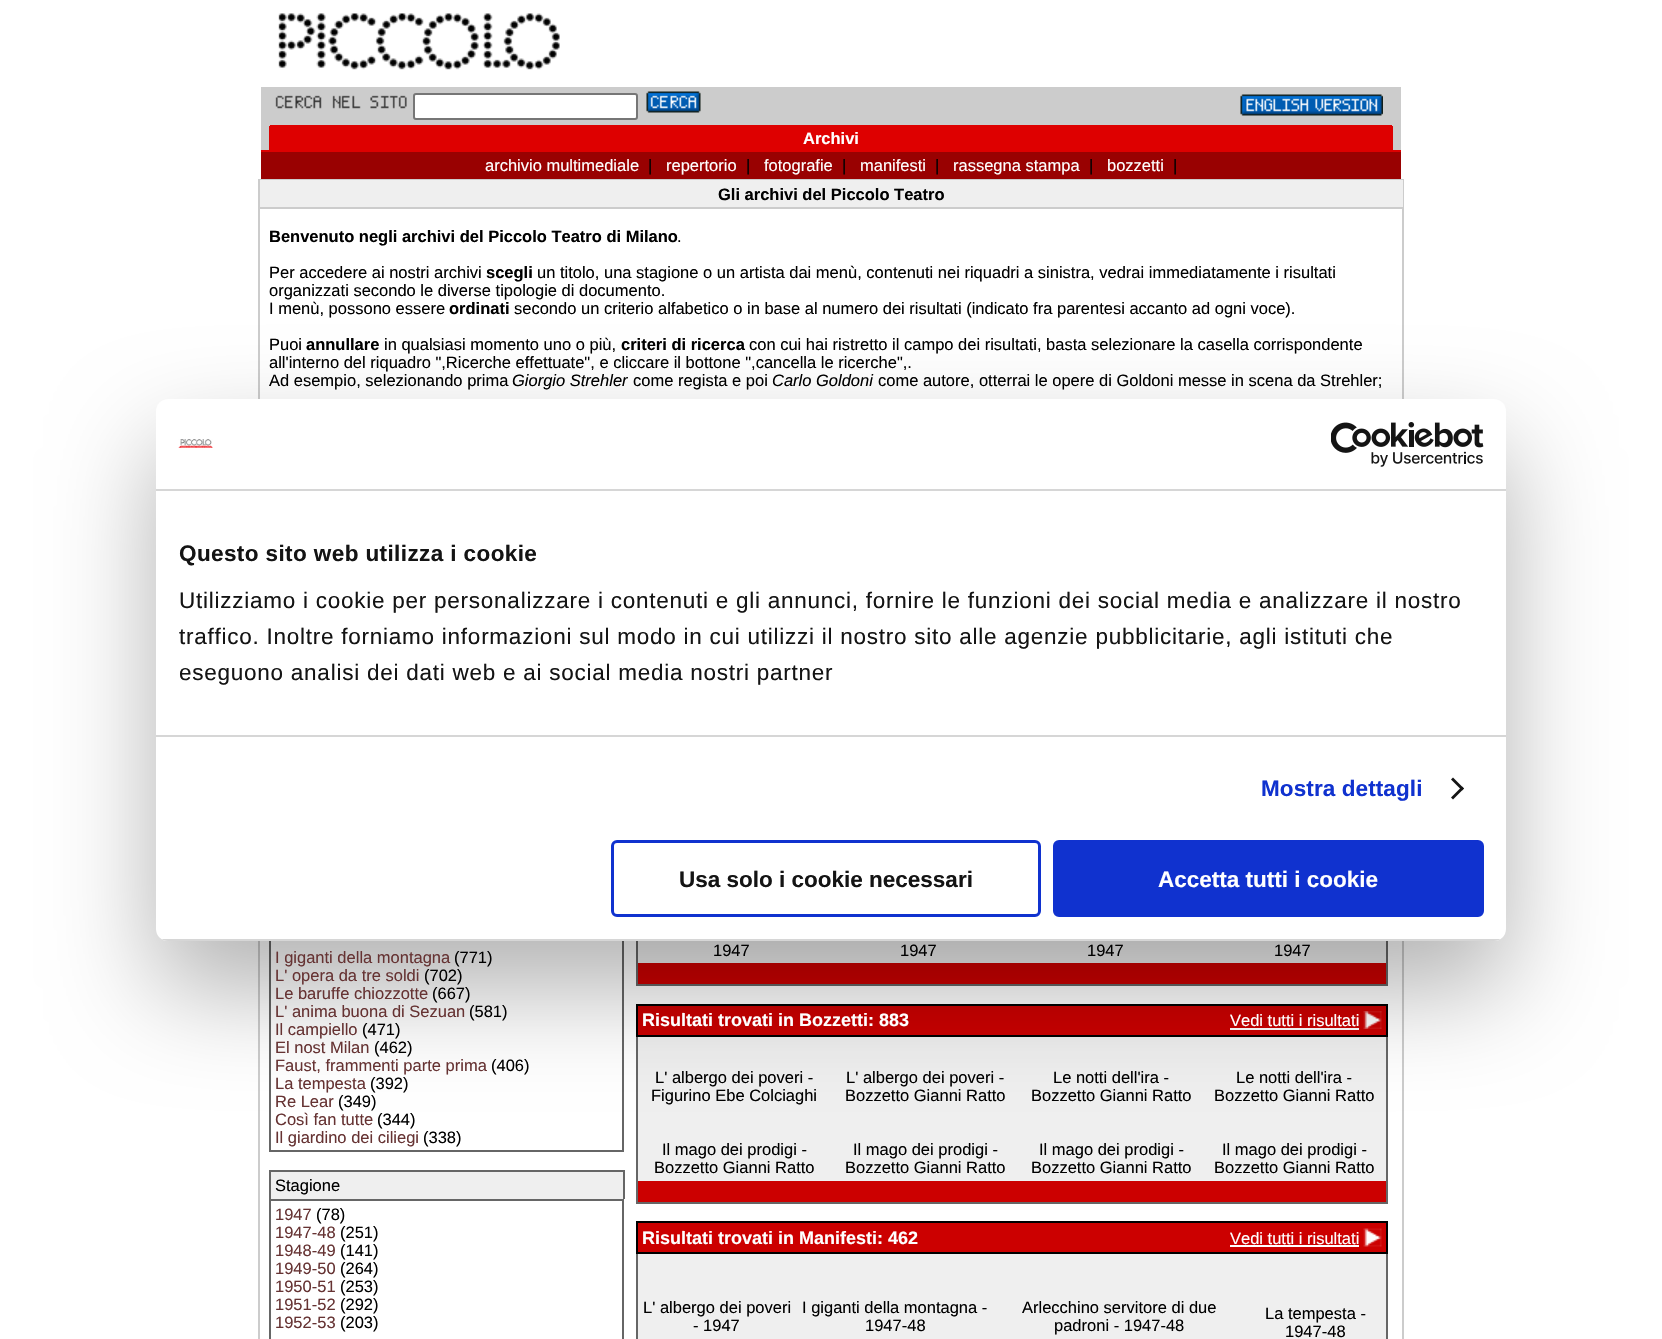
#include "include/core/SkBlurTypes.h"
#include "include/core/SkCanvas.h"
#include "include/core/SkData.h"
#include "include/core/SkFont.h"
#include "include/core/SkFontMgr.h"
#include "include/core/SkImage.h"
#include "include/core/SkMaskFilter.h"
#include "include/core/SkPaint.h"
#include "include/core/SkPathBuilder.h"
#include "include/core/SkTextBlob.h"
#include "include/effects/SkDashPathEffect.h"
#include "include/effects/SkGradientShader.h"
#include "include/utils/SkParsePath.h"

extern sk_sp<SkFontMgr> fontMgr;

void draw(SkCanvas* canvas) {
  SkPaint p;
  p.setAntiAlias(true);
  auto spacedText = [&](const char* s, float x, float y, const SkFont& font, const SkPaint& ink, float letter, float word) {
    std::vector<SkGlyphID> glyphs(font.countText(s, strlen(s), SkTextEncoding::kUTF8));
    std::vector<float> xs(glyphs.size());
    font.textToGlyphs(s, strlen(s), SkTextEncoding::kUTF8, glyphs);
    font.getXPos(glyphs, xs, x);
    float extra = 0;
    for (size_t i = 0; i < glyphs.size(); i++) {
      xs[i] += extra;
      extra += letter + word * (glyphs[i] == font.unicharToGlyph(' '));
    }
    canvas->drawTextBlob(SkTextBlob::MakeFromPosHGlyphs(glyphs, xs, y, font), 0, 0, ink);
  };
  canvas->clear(SK_ColorWHITE);
  canvas->drawImageRect(SkImages::DeferredFromEncodedData(SkData::MakeFromFileName("images/1.png")), SkRect::MakeLTRB(278, 13, 560, 70), SkSamplingOptions());
  p.setColor(SkColorSetRGB(204, 204, 204));
  canvas->drawRect(SkRect::MakeLTRB(261, 87, 1401, 125), p);
  canvas->drawImageRect(SkImages::DeferredFromEncodedData(SkData::MakeFromFileName("images/2.png")), SkRect::MakeLTRB(275, 95, 407, 109), SkSamplingOptions());
  p.setColor(SK_ColorWHITE);
  canvas->drawRoundRect(SkRect::MakeLTRB(414, 94, 637, 119), 2, 2, p);
  p.setStyle(SkPaint::kStroke_Style);
  p.setStrokeWidth(2);
  p.setColor(SkColorSetRGB(118, 118, 118));
  canvas->drawRoundRect(SkRect::MakeLTRB(414, 94, 637, 119), 2, 2, p);
  canvas->drawImageRect(SkImages::DeferredFromEncodedData(SkData::MakeFromFileName("images/3.png")), SkRect::MakeLTRB(646, 91, 701, 113), SkSamplingOptions());
  canvas->drawImageRect(SkImages::DeferredFromEncodedData(SkData::MakeFromFileName("images/4.png")), SkRect::MakeLTRB(1240, 94, 1383, 116), SkSamplingOptions());
  p.setStyle(SkPaint::kFill_Style);
  p.setColor(SkColorSetRGB(222, 0, 0));
  canvas->drawRect(SkRect::MakeLTRB(261, 150, 269, 152), p);
  p.setColor(SkColorSetRGB(204, 204, 204));
  canvas->drawRect(SkRect::MakeLTRB(261, 125, 269, 150), p);
  p.setColor(SkColorSetRGB(222, 0, 0));
  canvas->drawRect(SkRect::MakeLTRB(269, 125, 1401, 152), p);
  p.setColor(SkColorSetRGB(204, 204, 204));
  canvas->drawRect(SkRect::MakeLTRB(269, 125, 270, 126), p);
  canvas->drawImageRect(SkImages::DeferredFromEncodedData(SkData::MakeFromFileName("images/5.png")), SkRect::MakeLTRB(1392, 125, 1393, 126), SkSamplingOptions());
  canvas->drawRect(SkRect::MakeLTRB(1393, 125, 1401, 150), p);
  p.setColor(SkColorSetRGB(153, 1, 1));
  canvas->drawRect(SkRect::MakeLTRB(261, 152, 1401, 179), p);
  p.setStyle(SkPaint::kStroke_Style);
  p.setColor(SkColorSetRGB(204, 204, 204));
  canvas->drawRect(SkRect::MakeLTRB(259, 180, 1403, 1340), p);
  p.setStyle(SkPaint::kFill_Style);
  p.setColor(SkColorSetRGB(239, 239, 239));
  canvas->drawRect(SkRect::MakeLTRB(260, 180, 1403, 207), p);
  p.setColor(SkColorSetRGB(204, 204, 204));
  canvas->drawRect(SkRect::MakeLTRB(260, 207, 1403, 209), p);
  p.setStyle(SkPaint::kStroke_Style);
  p.setColor(SkColorSetRGB(102, 102, 102));
  canvas->drawRect(SkRect::MakeLTRB(270, 925, 623, 1151), p);
  p.setStyle(SkPaint::kFill_Style);
  p.setColor(SkColorSetRGB(239, 239, 239));
  canvas->drawRect(SkRect::MakeLTRB(271, 1172, 623, 1199), p);
  p.setColor(SkColorSetRGB(102, 102, 102));
  canvas->drawRect(SkRect::MakeLTRB(269, 1170, 624, 1172), p);
  canvas->drawRect(SkRect::MakeLTRB(623, 1170, 625, 1199), p);
  canvas->drawRect(SkRect::MakeLTRB(269, 1170, 271, 1199), p);
  p.setStyle(SkPaint::kStroke_Style);
  canvas->drawRect(SkRect::MakeLTRB(270, 1200, 623, 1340), p);
  p.setStyle(SkPaint::kFill_Style);
  p.setColor(SkColorSetRGB(239, 239, 239));
  canvas->drawRect(SkRect::MakeLTRB(638, 941, 1386, 963), p);
  p.setColor(SkColorSetRGB(102, 102, 102));
  canvas->drawRect(SkRect::MakeLTRB(1386, 941, 1388, 986), p);
  canvas->drawRect(SkRect::MakeLTRB(636, 984, 1388, 986), p);
  canvas->drawRect(SkRect::MakeLTRB(636, 941, 638, 986), p);
  p.setColor(SkColorSetRGB(204, 0, 0));
  canvas->drawRect(SkRect::MakeLTRB(638, 963, 1386, 984), p);
  canvas->drawRect(SkRect::MakeLTRB(637, 1005, 1387, 1036), p);
  p.setStyle(SkPaint::kStroke_Style);
  p.setColor(SK_ColorBLACK);
  canvas->drawRect(SkRect::MakeLTRB(637, 1005, 1387, 1036), p);
  p.setStyle(SkPaint::kFill_Style);
  p.setColor(SK_ColorWHITE);
  canvas->drawRect(SkRect::MakeLTRB(1230, 1028, 1359, 1030), p);
  canvas->drawImageRect(SkImages::DeferredFromEncodedData(SkData::MakeFromFileName("images/6.png")), SkRect::MakeLTRB(1363, 1011, 1382, 1029), SkSamplingOptions());
  p.setColor(SkColorSetRGB(239, 239, 239));
  canvas->drawRect(SkRect::MakeLTRB(638, 1037, 1386, 1181), p);
  p.setColor(SkColorSetRGB(102, 102, 102));
  canvas->drawRect(SkRect::MakeLTRB(1386, 1037, 1388, 1203), p);
  canvas->drawRect(SkRect::MakeLTRB(636, 1202, 1388, 1204), p);
  canvas->drawRect(SkRect::MakeLTRB(636, 1037, 638, 1203), p);
  p.setColor(SkColorSetRGB(204, 0, 0));
  canvas->drawRect(SkRect::MakeLTRB(638, 1181, 1386, 1202), p);
  canvas->drawRect(SkRect::MakeLTRB(637, 1222, 1387, 1253), p);
  p.setStyle(SkPaint::kStroke_Style);
  p.setColor(SK_ColorBLACK);
  canvas->drawRect(SkRect::MakeLTRB(637, 1222, 1387, 1253), p);
  p.setStyle(SkPaint::kFill_Style);
  p.setColor(SK_ColorWHITE);
  canvas->drawRect(SkRect::MakeLTRB(1230, 1245, 1359, 1247), p);
  canvas->drawImageRect(SkImages::DeferredFromEncodedData(SkData::MakeFromFileName("images/7.png")), SkRect::MakeLTRB(1363, 1228, 1382, 1247), SkSamplingOptions());
  p.setColor(SkColorSetRGB(239, 239, 239));
  canvas->drawRect(SkRect::MakeLTRB(638, 1254, 1386, 1339), p);
  p.setColor(SkColorSetRGB(102, 102, 102));
  canvas->drawRect(SkRect::MakeLTRB(1386, 1254, 1388, 1339), p);
  canvas->drawRect(SkRect::MakeLTRB(636, 1254, 638, 1339), p);
  p.setColor(SkColorSetARGB(77, 0, 0, 0));
  p.setMaskFilter(SkMaskFilter::MakeBlur(kNormal_SkBlurStyle, 51));
  canvas->drawRoundRect(SkRect::MakeLTRB(156, 447, 1506, 989), 12, 12, p);
  p.setMaskFilter(nullptr);
  p.setColor(SK_ColorWHITE);
  canvas->drawRoundRect(SkRect::MakeLTRB(156, 399, 1506, 941), 12, 12, p);
  p.setColor(SkColorSetRGB(214, 214, 214));
  canvas->drawRect(SkRect::MakeLTRB(156, 489, 1506, 491), p);
  canvas->drawImageRect(SkImages::DeferredFromEncodedData(SkData::MakeFromFileName("images/8.png")), SkRect::MakeLTRB(178, 439, 213, 448), SkSamplingOptions());
  canvas->drawImageRect(SkImages::DeferredFromEncodedData(SkData::MakeFromFileName("images/9.png")), SkRect::MakeLTRB(1331, 422, 1484, 467), SkSamplingOptions());
  canvas->drawRect(SkRect::MakeLTRB(156, 735, 1506, 737), p);
  p.setColor(SkColorSetRGB(20, 20, 20));
  canvas->drawPath(SkPathBuilder().moveTo(1453, 777.5f).lineTo(1464, 788.5f).lineTo(1462, 790.5f).lineTo(1451, 779.5f).close().detach(), p);
  canvas->drawPath(SkPathBuilder().moveTo(1462, 786.5f).lineTo(1464, 788.5f).lineTo(1453, 799.5f).lineTo(1451, 797.5f).close().detach(), p);
  canvas->save();
  canvas->clipPath(SkPathBuilder().moveTo(168, 399).lineTo(1494, 399).cubicTo(1500.5f, 399, 1506, 404.5f, 1506, 411).lineTo(1506, 929).cubicTo(1506, 935.5f, 1500.5f, 941, 1494, 941).lineTo(168, 941).cubicTo(161.5f, 941, 156, 935.5f, 156, 929).lineTo(156, 411).cubicTo(156, 404.5f, 161.5f, 399, 168, 399).close().detach(), true);
  p.setColor(SkColorSetRGB(214, 214, 214));
  canvas->drawRect(SkRect::MakeLTRB(156, 939, 1506, 941), p);
  canvas->restore();
  p.setStyle(SkPaint::kStroke_Style);
  p.setStrokeWidth(3);
  p.setColor(SkColorSetRGB(16, 50, 207));
  canvas->drawRoundRect(SkRect::MakeLTRB(612.5f, 841.5f, 1039.5f, 915.5f), 4.5f, 4.5f, p);
  p.setStyle(SkPaint::kFill_Style);
  canvas->drawRoundRect(SkRect::MakeLTRB(1054.5f, 841.5f, 1482.5f, 915.5f), 4.5f, 4.5f, p);
  p.setStyle(SkPaint::kStroke_Style);
  canvas->drawRoundRect(SkRect::MakeLTRB(1054.5f, 841.5f, 1482.5f, 915.5f), 4.5f, 4.5f, p);
  SkFont font1(fontMgr->matchFamilyStyle("Liberation Sans", SkFontStyle::Bold()), 16.5f);
  font1.setSubpixel(true);
  p.setStyle(SkPaint::kFill_Style);
  p.setColor(SK_ColorWHITE);
  canvas->drawString("Archivi", 803, 144, font1, p);
  SkFont font2(fontMgr->matchFamilyStyle("Liberation Sans", SkFontStyle::Normal()), 16.5f);
  font2.setSubpixel(true);
  canvas->drawString("archivio multimediale", 485, 171, font2, p);
  p.setColor(SK_ColorBLACK);
  canvas->drawString("|", 648, 171, font2, p);
  p.setColor(SK_ColorWHITE);
  canvas->drawString("repertorio", 666, 171, font2, p);
  p.setColor(SK_ColorBLACK);
  canvas->drawString("|", 746, 171, font2, p);
  p.setColor(SK_ColorWHITE);
  canvas->drawString("fotografie", 764, 171, font2, p);
  p.setColor(SK_ColorBLACK);
  canvas->drawString("|", 842, 171, font2, p);
  p.setColor(SK_ColorWHITE);
  canvas->drawString("manifesti", 860, 171, font2, p);
  p.setColor(SK_ColorBLACK);
  canvas->drawString("|", 935, 171, font2, p);
  p.setColor(SK_ColorWHITE);
  canvas->drawString("rassegna stampa", 953, 171, font2, p);
  p.setColor(SK_ColorBLACK);
  canvas->drawString("|", 1089, 171, font2, p);
  p.setColor(SK_ColorWHITE);
  canvas->drawString("bozzetti", 1107, 171, font2, p);
  p.setColor(SK_ColorBLACK);
  canvas->drawString("|", 1173, 171, font2, p);
  canvas->drawString("Gli archivi del Piccolo Teatro", 718, 200, font1, p);
  canvas->drawString("Benvenuto negli archivi del Piccolo Teatro di Milano", 269, 242, font1, p);
  canvas->drawString(".", 677, 242, font2, p);
  canvas->drawString("Per accedere ai nostri archivi", 269, 278, font2, p);
  canvas->drawString("scegli", 486, 278, font1, p);
  canvas->drawString("un titolo, una stagione o un artista dai menù, contenuti nei riquadri a sinistra, vedrai immediatamente i risultati", 537, 278, font2, p);
  canvas->drawString("organizzati secondo le diverse tipologie di documento.", 269, 296, font2, p);
  canvas->drawString("I menù, possono essere", 269, 314, font2, p);
  canvas->drawString("ordinati", 449, 314, font1, p);
  canvas->drawString("secondo un criterio alfabetico o in base al numero dei risultati (indicato fra parentesi accanto ad ogni voce).", 514, 314, font2, p);
  canvas->drawString("Puoi", 269, 350, font2, p);
  canvas->drawString("annullare", 306, 350, font1, p);
  canvas->drawString("in qualsiasi momento uno o più,", 384, 350, font2, p);
  canvas->drawString("criteri di ricerca", 621, 350, font1, p);
  canvas->drawString("con cui hai ristretto il campo dei risultati, basta selezionare la casella corrispondente", 749, 350, font2, p);
  canvas->drawString("all'interno del riquadro \",Ricerche effettuate\", e cliccare il bottone \",cancella le ricerche\",.", 269, 368, font2, p);
  canvas->drawString("Ad esempio, selezionando prima", 269, 386, font2, p);
  SkFont font3(fontMgr->matchFamilyStyle("Liberation Sans", SkFontStyle::Italic()), 16.5f);
  font3.setSubpixel(true);
  canvas->drawString("Giorgio Strehler", 512, 386, font3, p);
  canvas->drawString("come regista e poi", 633, 386, font2, p);
  canvas->drawString("Carlo Goldoni", 772, 386, font3, p);
  canvas->drawString("come autore, otterrai le opere di Goldoni messe in scena da Strehler;", 878, 386, font2, p);
  p.setColor(SkColorSetRGB(102, 51, 51));
  canvas->drawString("I giganti della montagna", 275, 963, font2, p);
  p.setColor(SK_ColorBLACK);
  canvas->drawString("(771)", 454, 963, font2, p);
  p.setColor(SkColorSetRGB(102, 51, 51));
  canvas->drawString("L' opera da tre soldi", 275, 981, font2, p);
  p.setColor(SK_ColorBLACK);
  canvas->drawString("(702)", 424, 981, font2, p);
  p.setColor(SkColorSetRGB(102, 51, 51));
  canvas->drawString("Le baruffe chiozzotte", 275, 999, font2, p);
  p.setColor(SK_ColorBLACK);
  canvas->drawString("(667)", 432, 999, font2, p);
  p.setColor(SkColorSetRGB(102, 51, 51));
  canvas->drawString("L' anima buona di Sezuan", 275, 1017, font2, p);
  p.setColor(SK_ColorBLACK);
  canvas->drawString("(581)", 469, 1017, font2, p);
  p.setColor(SkColorSetRGB(102, 51, 51));
  canvas->drawString("Il campiello", 275, 1035, font2, p);
  p.setColor(SK_ColorBLACK);
  canvas->drawString("(471)", 362, 1035, font2, p);
  p.setColor(SkColorSetRGB(102, 51, 51));
  canvas->drawString("El nost Milan", 275, 1053, font2, p);
  p.setColor(SK_ColorBLACK);
  canvas->drawString("(462)", 374, 1053, font2, p);
  p.setColor(SkColorSetRGB(102, 51, 51));
  canvas->drawString("Faust, frammenti parte prima", 275, 1071, font2, p);
  p.setColor(SK_ColorBLACK);
  canvas->drawString("(406)", 491, 1071, font2, p);
  p.setColor(SkColorSetRGB(102, 51, 51));
  canvas->drawString("La tempesta", 275, 1089, font2, p);
  p.setColor(SK_ColorBLACK);
  canvas->drawString("(392)", 370, 1089, font2, p);
  p.setColor(SkColorSetRGB(102, 51, 51));
  canvas->drawString("Re Lear", 275, 1107, font2, p);
  p.setColor(SK_ColorBLACK);
  canvas->drawString("(349)", 338, 1107, font2, p);
  p.setColor(SkColorSetRGB(102, 51, 51));
  canvas->drawString("Così fan tutte", 275, 1125, font2, p);
  p.setColor(SK_ColorBLACK);
  canvas->drawString("(344)", 377, 1125, font2, p);
  p.setColor(SkColorSetRGB(102, 51, 51));
  canvas->drawString("Il giardino dei ciliegi", 275, 1143, font2, p);
  p.setColor(SK_ColorBLACK);
  canvas->drawString("(338)", 423, 1143, font2, p);
  canvas->drawString("Stagione", 275, 1191, font2, p);
  p.setColor(SkColorSetRGB(102, 51, 51));
  canvas->drawString("1947", 275, 1220, font2, p);
  p.setColor(SK_ColorBLACK);
  canvas->drawString("(78)", 316, 1220, font2, p);
  p.setColor(SkColorSetRGB(102, 51, 51));
  canvas->drawString("1947-48", 275, 1238, font2, p);
  p.setColor(SK_ColorBLACK);
  canvas->drawString("(251)", 340, 1238, font2, p);
  p.setColor(SkColorSetRGB(102, 51, 51));
  canvas->drawString("1948-49", 275, 1256, font2, p);
  p.setColor(SK_ColorBLACK);
  canvas->drawString("(141)", 340, 1256, font2, p);
  p.setColor(SkColorSetRGB(102, 51, 51));
  canvas->drawString("1949-50", 275, 1274, font2, p);
  p.setColor(SK_ColorBLACK);
  canvas->drawString("(264)", 340, 1274, font2, p);
  p.setColor(SkColorSetRGB(102, 51, 51));
  canvas->drawString("1950-51", 275, 1292, font2, p);
  p.setColor(SK_ColorBLACK);
  canvas->drawString("(253)", 340, 1292, font2, p);
  p.setColor(SkColorSetRGB(102, 51, 51));
  canvas->drawString("1951-52", 275, 1310, font2, p);
  p.setColor(SK_ColorBLACK);
  canvas->drawString("(292)", 340, 1310, font2, p);
  p.setColor(SkColorSetRGB(102, 51, 51));
  canvas->drawString("1952-53", 275, 1328, font2, p);
  p.setColor(SK_ColorBLACK);
  canvas->drawString("(203)", 340, 1328, font2, p);
  canvas->drawString("1947", 713, 956, font2, p);
  canvas->drawString("1947", 900, 956, font2, p);
  canvas->drawString("1947", 1087, 956, font2, p);
  canvas->drawString("1947", 1274, 956, font2, p);
  SkFont font4(fontMgr->matchFamilyStyle("Liberation Sans", SkFontStyle::Bold()), 18);
  font4.setSubpixel(true);
  p.setColor(SK_ColorWHITE);
  canvas->drawString("Risultati trovati in Bozzetti: 883", 642, 1026, font4, p);
  canvas->drawString("Vedi tutti i risultati", 1230, 1026, font2, p);
  p.setColor(SK_ColorBLACK);
  canvas->drawString("L' albergo dei poveri -", 655, 1083, font2, p);
  canvas->drawString("Figurino Ebe Colciaghi", 651, 1101, font2, p);
  canvas->drawString("L' albergo dei poveri -", 846, 1083, font2, p);
  canvas->drawString("Bozzetto Gianni Ratto", 845, 1101, font2, p);
  canvas->drawString("Le notti dell'ira -", 1053, 1083, font2, p);
  canvas->drawString("Bozzetto Gianni Ratto", 1031, 1101, font2, p);
  canvas->drawString("Le notti dell'ira -", 1236, 1083, font2, p);
  canvas->drawString("Bozzetto Gianni Ratto", 1214, 1101, font2, p);
  canvas->drawString("Il mago dei prodigi -", 662, 1155, font2, p);
  canvas->drawString("Bozzetto Gianni Ratto", 654, 1173, font2, p);
  canvas->drawString("Il mago dei prodigi -", 853, 1155, font2, p);
  canvas->drawString("Bozzetto Gianni Ratto", 845, 1173, font2, p);
  canvas->drawString("Il mago dei prodigi -", 1039, 1155, font2, p);
  canvas->drawString("Bozzetto Gianni Ratto", 1031, 1173, font2, p);
  canvas->drawString("Il mago dei prodigi -", 1222, 1155, font2, p);
  canvas->drawString("Bozzetto Gianni Ratto", 1214, 1173, font2, p);
  p.setColor(SK_ColorWHITE);
  canvas->drawString("Risultati trovati in Manifesti: 462", 642, 1244, font4, p);
  canvas->drawString("Vedi tutti i risultati", 1230, 1244, font2, p);
  p.setColor(SK_ColorBLACK);
  canvas->drawString("L' albergo dei poveri", 643, 1313, font2, p);
  canvas->drawString("- 1947", 693, 1331, font2, p);
  canvas->drawString("I giganti della montagna -", 802, 1313, font2, p);
  canvas->drawString("1947-48", 865, 1331, font2, p);
  canvas->drawString("Arlecchino servitore di due", 1022, 1313, font2, p);
  canvas->drawString("padroni - 1947-48", 1054, 1331, font2, p);
  canvas->drawString("La tempesta -", 1265, 1319, font2, p);
  canvas->drawString("1947-48", 1285, 1337, font2, p);
  SkFont font5(fontMgr->matchFamilyStyle("Liberation Sans", SkFontStyle::Bold()), 22.5f);
  font5.setSubpixel(true);
  p.setColor(SkColorSetRGB(20, 20, 20));
  spacedText("Questo sito web utilizza i cookie", 179, 561, font5, p, 0.4f, 0);
  SkFont font6(fontMgr->matchFamilyStyle("Liberation Sans", SkFontStyle::Normal()), 22.5f);
  font6.setSubpixel(true);
  spacedText("Utilizziamo i cookie per personalizzare i contenuti e gli annunci, fornire le funzioni dei social media e analizzare il nostro", 179, 608, font6, p, 0.75f, 0);
  spacedText("traffico. Inoltre forniamo informazioni sul modo in cui utilizzi il nostro sito alle agenzie pubblicitarie, agli istituti che", 179, 644, font6, p, 0.75f, 0);
  spacedText("eseguono analisi dei dati web e ai social media nostri partner", 179, 680, font6, p, 0.75f, 0);
  p.setColor(SkColorSetRGB(16, 50, 207));
  spacedText("Mostra dettagli", 1261, 796, font5, p, 0.1f, 0);
  p.setColor(SkColorSetRGB(20, 20, 20));
  canvas->drawString("Usa solo i cookie necessari", 679, 887, font5, p);
  p.setColor(SK_ColorWHITE);
  canvas->drawString("Accetta tutti i cookie", 1158, 887, font5, p);
}
